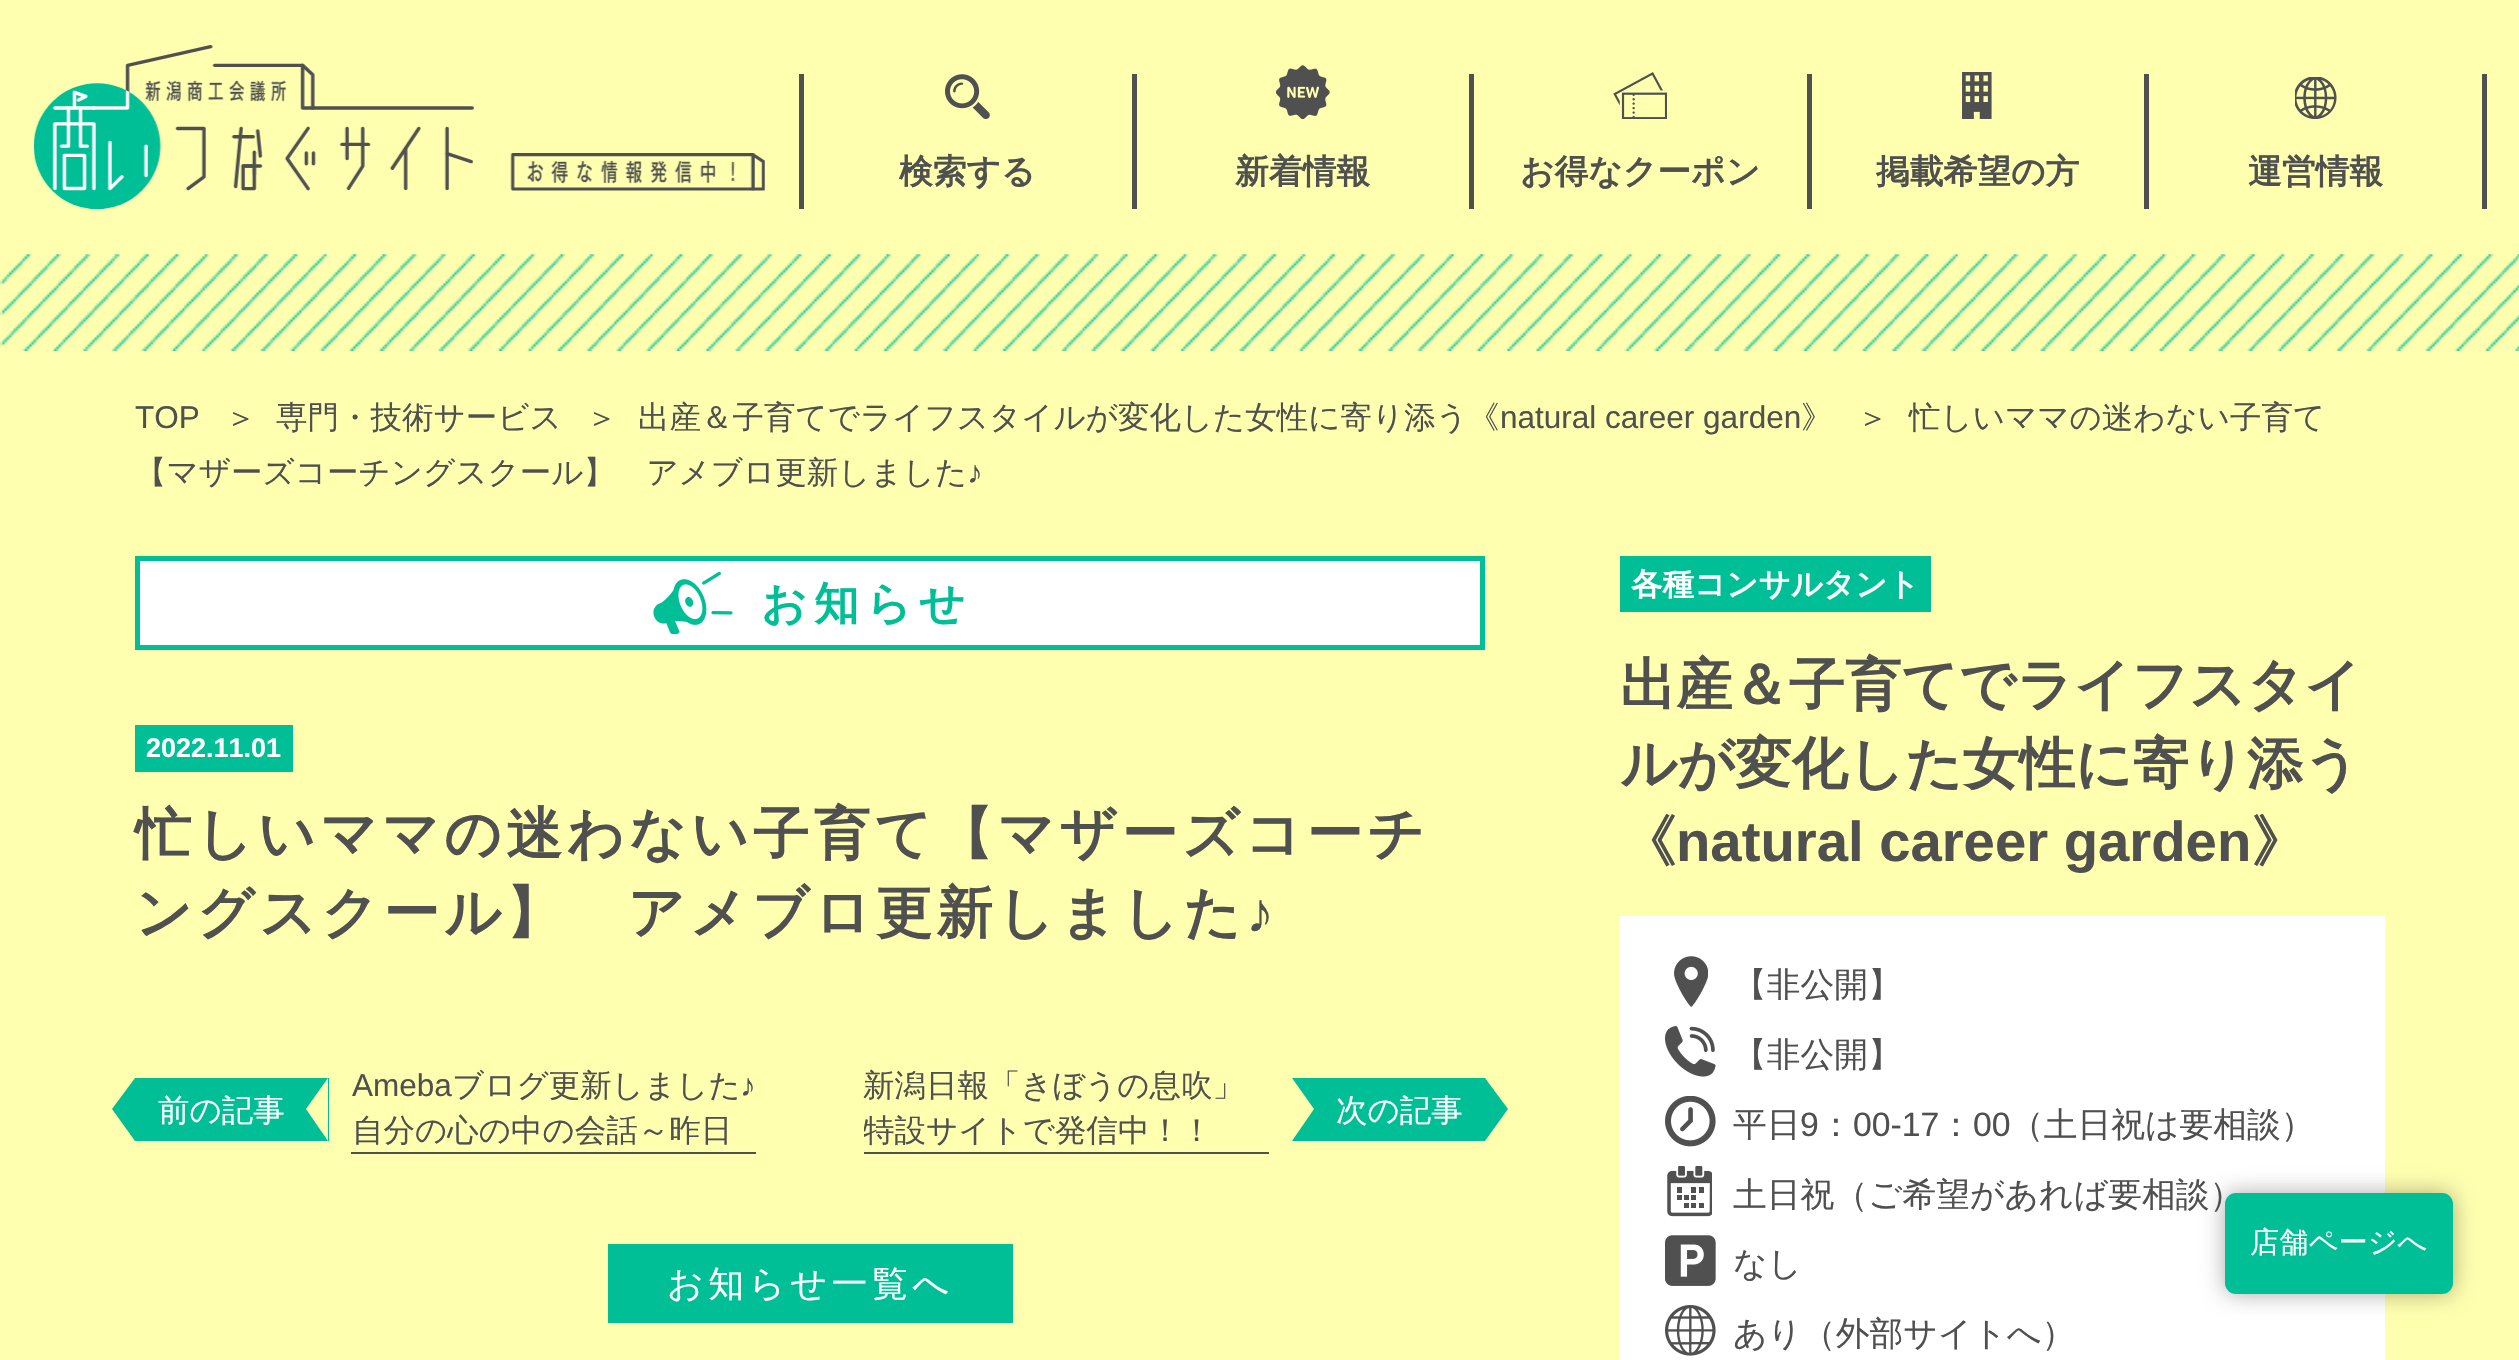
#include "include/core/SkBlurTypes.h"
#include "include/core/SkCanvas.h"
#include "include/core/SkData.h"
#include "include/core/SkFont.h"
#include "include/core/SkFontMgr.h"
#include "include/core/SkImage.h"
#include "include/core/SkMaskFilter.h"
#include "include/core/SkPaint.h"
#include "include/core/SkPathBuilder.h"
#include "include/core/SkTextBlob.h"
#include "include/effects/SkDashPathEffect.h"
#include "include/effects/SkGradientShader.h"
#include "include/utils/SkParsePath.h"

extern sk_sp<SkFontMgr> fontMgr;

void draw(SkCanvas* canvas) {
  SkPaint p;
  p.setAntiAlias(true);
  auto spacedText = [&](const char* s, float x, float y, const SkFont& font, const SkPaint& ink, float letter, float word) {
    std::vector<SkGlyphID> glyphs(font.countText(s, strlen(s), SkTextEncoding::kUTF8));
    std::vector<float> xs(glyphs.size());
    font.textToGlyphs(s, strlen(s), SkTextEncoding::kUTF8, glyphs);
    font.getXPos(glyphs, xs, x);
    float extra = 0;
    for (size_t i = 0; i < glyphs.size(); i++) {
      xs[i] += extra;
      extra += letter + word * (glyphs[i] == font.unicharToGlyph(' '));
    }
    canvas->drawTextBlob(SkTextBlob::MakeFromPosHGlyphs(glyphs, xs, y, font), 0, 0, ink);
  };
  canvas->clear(SkColorSetRGB(255, 255, 176));
  canvas->drawImageRect(SkImages::DeferredFromEncodedData(SkData::MakeFromFileName("images/1.png")), SkRect::MakeLTRB(34, 45, 765, 209), SkSamplingOptions());
  p.setColor(SkColorSetRGB(80, 80, 80));
  canvas->drawRect(SkRect::MakeLTRB(1132, 74, 1137, 209), p);
  canvas->drawRect(SkRect::MakeLTRB(799, 74, 804, 209), p);
  canvas->drawImageRect(SkImages::DeferredFromEncodedData(SkData::MakeFromFileName("images/2.png")), SkRect::MakeLTRB(945, 74, 990, 119), SkSamplingOptions());
  canvas->drawRect(SkRect::MakeLTRB(1469, 74, 1474, 209), p);
  canvas->drawImageRect(SkImages::DeferredFromEncodedData(SkData::MakeFromFileName("images/3.png")), SkRect::MakeLTRB(1276, 65, 1330, 119), SkSamplingOptions());
  canvas->drawRect(SkRect::MakeLTRB(1807, 74, 1812, 209), p);
  canvas->drawImageRect(SkImages::DeferredFromEncodedData(SkData::MakeFromFileName("images/4.png")), SkRect::MakeLTRB(1613, 72, 1667, 119), SkSamplingOptions());
  canvas->drawRect(SkRect::MakeLTRB(2144, 74, 2149, 209), p);
  canvas->drawImageRect(SkImages::DeferredFromEncodedData(SkData::MakeFromFileName("images/5.png")), SkRect::MakeLTRB(1962, 72, 1992, 119), SkSamplingOptions());
  canvas->drawRect(SkRect::MakeLTRB(2482, 74, 2487, 209), p);
  canvas->drawImageRect(SkImages::DeferredFromEncodedData(SkData::MakeFromFileName("images/6.png")), SkRect::MakeLTRB(2295, 77, 2337, 119), SkSamplingOptions());
  canvas->drawImageRect(SkImages::DeferredFromEncodedData(SkData::MakeFromFileName("images/7.png")), SkRect::MakeLTRB(0, 254, 2519, 351), SkSamplingOptions());
  p.setColor(SK_ColorWHITE);
  canvas->drawRect(SkRect::MakeLTRB(137.5f, 558.5f, 1482.5f, 647.5f), p);
  p.setStyle(SkPaint::kStroke_Style);
  p.setStrokeWidth(5);
  p.setColor(SkColorSetRGB(0, 190, 150));
  canvas->drawRect(SkRect::MakeLTRB(137.5f, 558.5f, 1482.5f, 647.5f), p);
  canvas->drawImageRect(SkImages::DeferredFromEncodedData(SkData::MakeFromFileName("images/8.png")), SkRect::MakeLTRB(653, 571, 733, 635), SkSamplingOptions());
  p.setStyle(SkPaint::kFill_Style);
  canvas->drawRect(SkRect::MakeLTRB(135, 725, 293, 772), p);
  canvas->drawRect(SkRect::MakeLTRB(135, 1078, 329, 1141), p);
  canvas->drawPath(SkPathBuilder().moveTo(135, 1078).lineTo(135, 1141).lineTo(112, 1109).close().detach(), p);
  p.setColor(SkColorSetRGB(255, 255, 176));
  canvas->drawPath(SkPathBuilder().moveTo(328, 1078).lineTo(328, 1141).lineTo(306, 1109).close().detach(), p);
  p.setColor(SkColorSetRGB(80, 80, 80));
  canvas->drawRect(SkRect::MakeLTRB(351, 1152, 756, 1154), p);
  canvas->drawRect(SkRect::MakeLTRB(864, 1152, 1269, 1154), p);
  p.setColor(SkColorSetRGB(0, 190, 150));
  canvas->drawRect(SkRect::MakeLTRB(1292, 1078, 1485, 1141), p);
  p.setColor(SkColorSetRGB(255, 255, 176));
  canvas->drawPath(SkPathBuilder().moveTo(1292, 1141).lineTo(1292, 1078).lineTo(1314, 1109).close().detach(), p);
  p.setColor(SkColorSetRGB(0, 190, 150));
  canvas->drawPath(SkPathBuilder().moveTo(1485, 1141).lineTo(1485, 1078).lineTo(1508, 1109).close().detach(), p);
  canvas->drawRect(SkRect::MakeLTRB(608, 1244, 1013, 1323), p);
  canvas->drawRect(SkRect::MakeLTRB(1620, 556, 1931, 612), p);
  p.setColor(SK_ColorWHITE);
  canvas->drawRect(SkRect::MakeLTRB(1620, 916, 2385, 1360), p);
  canvas->drawImageRect(SkImages::DeferredFromEncodedData(SkData::MakeFromFileName("images/9.png")), SkRect::MakeLTRB(1674, 956, 1708, 1007), SkSamplingOptions());
  canvas->drawImageRect(SkImages::DeferredFromEncodedData(SkData::MakeFromFileName("images/10.png")), SkRect::MakeLTRB(1665, 1026, 1716, 1077), SkSamplingOptions());
  canvas->drawImageRect(SkImages::DeferredFromEncodedData(SkData::MakeFromFileName("images/11.png")), SkRect::MakeLTRB(1665, 1096, 1716, 1147), SkSamplingOptions());
  canvas->drawImageRect(SkImages::DeferredFromEncodedData(SkData::MakeFromFileName("images/12.png")), SkRect::MakeLTRB(1667, 1166, 1712, 1217), SkSamplingOptions());
  canvas->drawImageRect(SkImages::DeferredFromEncodedData(SkData::MakeFromFileName("images/13.png")), SkRect::MakeLTRB(1665, 1235, 1716, 1286), SkSamplingOptions());
  canvas->drawImageRect(SkImages::DeferredFromEncodedData(SkData::MakeFromFileName("images/14.png")), SkRect::MakeLTRB(1665, 1305, 1716, 1356), SkSamplingOptions());
  p.setColor(SkColorSetARGB(84, 0, 0, 0));
  p.setMaskFilter(SkMaskFilter::MakeBlur(kNormal_SkBlurStyle, 11));
  canvas->drawRoundRect(SkRect::MakeLTRB(2225, 1193, 2453, 1294), 11, 11, p);
  p.setMaskFilter(nullptr);
  p.setColor(SkColorSetRGB(0, 190, 150));
  canvas->drawRoundRect(SkRect::MakeLTRB(2225, 1193, 2453, 1294), 11, 11, p);
  SkFont font1(fontMgr->matchFamilyStyle("WenQuanYi Zen Hei", SkFontStyle::Bold()), 33.75f);
  font1.setSubpixel(true);
  p.setColor(SkColorSetRGB(80, 80, 80));
  canvas->drawString("検索する", 899, 183, font1, p);
  canvas->drawString("新着情報", 1235, 183, font1, p);
  canvas->drawString("お得なクーポン", 1520, 183, font1, p);
  canvas->drawString("掲載希望の方", 1876, 183, font1, p);
  canvas->drawString("運営情報", 2248, 183, font1, p);
  SkFont font2(fontMgr->matchFamilyStyle("Liberation Sans", SkFontStyle::Normal()), 31.5f);
  font2.setSubpixel(true);
  canvas->drawString("TOP", 135, 428, font2, p);
  SkFont font3(fontMgr->matchFamilyStyle("WenQuanYi Zen Hei", SkFontStyle(500, SkFontStyle::kNormal_Width, SkFontStyle::kUpright_Slant)), 31.5f);
  font3.setSubpixel(true);
  canvas->drawString("＞", 225, 428, font3, p);
  canvas->drawString("専門・技術サービス", 276, 428, font3, p);
  canvas->drawString("＞", 586, 428, font3, p);
  canvas->drawString("出産＆子育てでライフスタイルが変化した女性に寄り添う《", 638, 428, font3, p);
  canvas->drawString("natural career garden", 1500, 428, font2, p);
  canvas->drawString("》", 1801, 428, font3, p);
  canvas->drawString("＞", 1857, 428, font3, p);
  canvas->drawString("忙しいママの迷わない子育て", 1909, 428, font3, p);
  canvas->drawString("【マザーズコーチングスクール】　アメブロ更新しました", 135, 483, font3, p);
  canvas->drawString("♪", 967, 483, font2, p);
  SkFont font4(fontMgr->matchFamilyStyle("WenQuanYi Zen Hei", SkFontStyle::Bold()), 45);
  font4.setSubpixel(true);
  p.setColor(SkColorSetRGB(0, 190, 150));
  spacedText("お知らせ", 761, 619, font4, p, 7, 0);
  SkFont font5(fontMgr->matchFamilyStyle("Liberation Sans", SkFontStyle::Bold()), 27);
  font5.setSubpixel(true);
  p.setColor(SK_ColorWHITE);
  canvas->drawString("2022.11.01", 146, 757, font5, p);
  SkFont font6(fontMgr->matchFamilyStyle("WenQuanYi Zen Hei", SkFontStyle::Bold()), 56.25f);
  font6.setSubpixel(true);
  p.setColor(SkColorSetRGB(80, 80, 80));
  spacedText("忙しいママの迷わない子育て【マザーズコーチ", 135, 853, font6, p, 4.5f, 0);
  spacedText("ングスクール】　アメブロ更新しました", 135, 932, font6, p, 4.5f, 0);
  SkFont font7(fontMgr->matchFamilyStyle("Liberation Sans", SkFontStyle::Bold()), 56.25f);
  font7.setSubpixel(true);
  spacedText("♪", 1246, 932, font7, p, 4.5f, 0);
  p.setColor(SK_ColorWHITE);
  canvas->drawString("前の記事", 158, 1121, font3, p);
  p.setColor(SkColorSetRGB(80, 80, 80));
  canvas->drawString("Ameba", 352, 1096, font2, p);
  canvas->drawString("ブログ更新しました", 452, 1096, font3, p);
  canvas->drawString("♪", 740, 1096, font2, p);
  canvas->drawString("自分の心の中の会話～昨日", 352, 1141, font3, p);
  canvas->drawString("新潟日報「きぼうの息吹」", 863, 1096, font3, p);
  canvas->save();
  canvas->clipRect(SkRect::MakeLTRB(864, 1064, 1269, 1152));
  canvas->drawString("特設サイトで発信中！！", 863, 1141, font3, p);
  canvas->restore();
  p.setColor(SK_ColorWHITE);
  canvas->drawString("次の記事", 1336, 1121, font3, p);
  SkFont font8(fontMgr->matchFamilyStyle("WenQuanYi Zen Hei", SkFontStyle(500, SkFontStyle::kNormal_Width, SkFontStyle::kUpright_Slant)), 36);
  font8.setSubpixel(true);
  spacedText("お知らせ一覧へ", 667, 1296, font8, p, 4.5f, 0);
  SkFont font9(fontMgr->matchFamilyStyle("WenQuanYi Zen Hei", SkFontStyle::Bold()), 31.5f);
  font9.setSubpixel(true);
  canvas->drawString("各種コンサルタント", 1631, 595, font9, p);
  p.setColor(SkColorSetRGB(80, 80, 80));
  canvas->drawString("出産＆子育てでライフスタイ", 1620, 704, font6, p);
  canvas->drawString("ルが変化した女性に寄り添う", 1620, 783, font6, p);
  canvas->drawString("《", 1620, 861, font6, p);
  canvas->drawString("natural career garden", 1676, 861, font7, p);
  canvas->drawString("》", 2251, 861, font6, p);
  SkFont font10(fontMgr->matchFamilyStyle("WenQuanYi Zen Hei", SkFontStyle(500, SkFontStyle::kNormal_Width, SkFontStyle::kUpright_Slant)), 33.75f);
  font10.setSubpixel(true);
  canvas->drawString("【非公開】", 1733, 996, font10, p);
  canvas->drawString("【非公開】", 1733, 1066, font10, p);
  canvas->drawString("平日", 1733, 1136, font10, p);
  SkFont font11(fontMgr->matchFamilyStyle("Liberation Sans", SkFontStyle::Normal()), 33.75f);
  font11.setSubpixel(true);
  canvas->drawString("9", 1800, 1136, font11, p);
  canvas->drawString("：", 1819, 1136, font10, p);
  canvas->drawString("00-17", 1853, 1136, font11, p);
  canvas->drawString("：", 1939, 1136, font10, p);
  canvas->drawString("00", 1973, 1136, font11, p);
  canvas->drawString("（土日祝は要相談）", 2010, 1136, font10, p);
  canvas->drawString("土日祝（ご希望があれば要相談）", 1733, 1206, font10, p);
  canvas->drawString("なし", 1733, 1275, font10, p);
  canvas->drawString("あり（外部サイトへ）", 1733, 1345, font10, p);
  SkFont font12(fontMgr->matchFamilyStyle("WenQuanYi Zen Hei", SkFontStyle(500, SkFontStyle::kNormal_Width, SkFontStyle::kUpright_Slant)), 29.25f);
  font12.setSubpixel(true);
  p.setColor(SK_ColorWHITE);
  canvas->drawString("店舗ページへ", 2250, 1252, font12, p);
}
